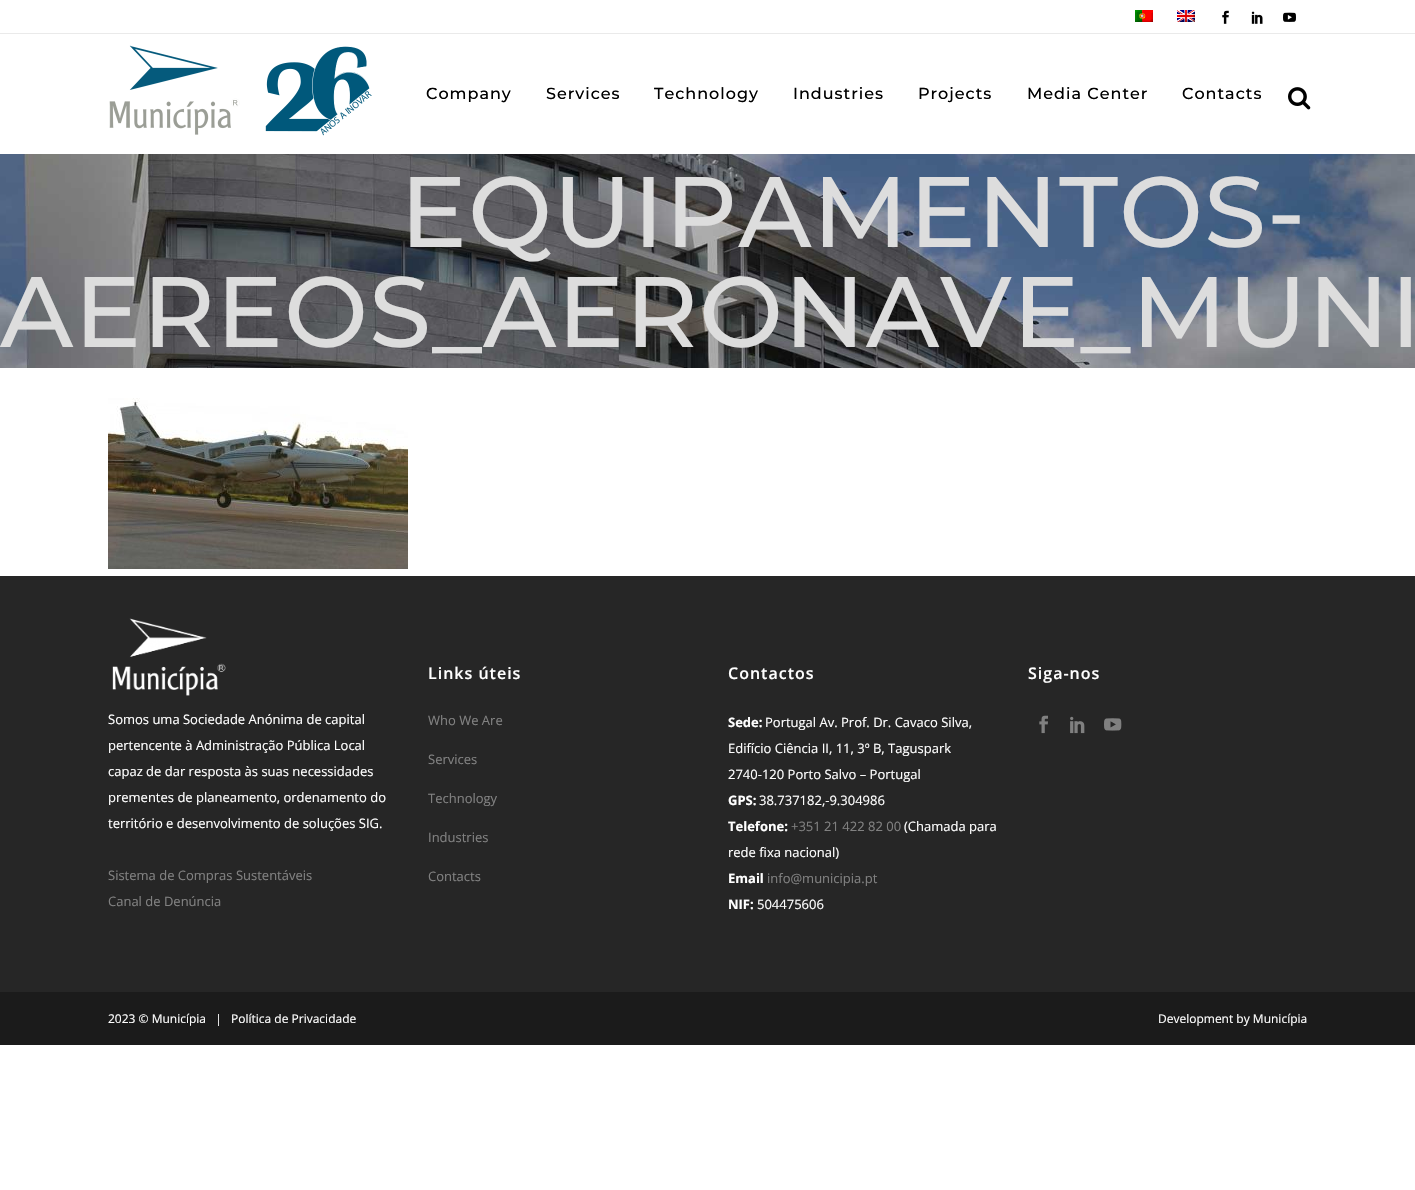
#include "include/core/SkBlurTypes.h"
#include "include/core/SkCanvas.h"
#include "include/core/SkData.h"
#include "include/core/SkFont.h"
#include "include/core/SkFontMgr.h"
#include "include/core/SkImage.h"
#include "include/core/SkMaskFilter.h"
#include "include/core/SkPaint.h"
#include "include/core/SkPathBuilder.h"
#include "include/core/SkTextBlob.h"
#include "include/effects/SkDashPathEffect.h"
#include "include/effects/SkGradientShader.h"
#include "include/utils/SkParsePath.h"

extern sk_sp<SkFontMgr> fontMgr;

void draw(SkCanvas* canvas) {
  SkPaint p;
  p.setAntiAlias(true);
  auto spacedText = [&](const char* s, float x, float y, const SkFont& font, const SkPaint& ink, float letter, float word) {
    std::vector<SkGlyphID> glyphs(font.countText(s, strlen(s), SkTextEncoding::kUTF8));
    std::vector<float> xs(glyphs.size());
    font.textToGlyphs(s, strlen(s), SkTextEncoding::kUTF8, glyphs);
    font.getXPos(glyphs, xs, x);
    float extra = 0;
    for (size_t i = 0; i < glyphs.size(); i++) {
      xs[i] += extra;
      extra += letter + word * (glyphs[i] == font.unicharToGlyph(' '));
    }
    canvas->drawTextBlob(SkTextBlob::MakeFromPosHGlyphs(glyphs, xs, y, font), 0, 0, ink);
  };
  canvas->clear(SK_ColorWHITE);
  p.setColor(SkColorSetRGB(234, 234, 234));
  canvas->drawRect(SkRect::MakeLTRB(0, 33, 1415, 34), p);
  canvas->drawImageRect(SkImages::DeferredFromEncodedData(SkData::MakeFromFileName("images/1.png")), SkRect::MakeLTRB(1135, 10, 1153, 22), SkSamplingOptions());
  canvas->drawImageRect(SkImages::DeferredFromEncodedData(SkData::MakeFromFileName("images/2.png")), SkRect::MakeLTRB(1177, 10, 1195, 22), SkSamplingOptions());
  canvas->drawImageRect(SkImages::DeferredFromEncodedData(SkData::MakeFromFileName("images/3.png")), SkRect::MakeLTRB(1222, 10, 1229, 24), SkSamplingOptions());
  canvas->drawImageRect(SkImages::DeferredFromEncodedData(SkData::MakeFromFileName("images/4.png")), SkRect::MakeLTRB(1251, 11, 1263, 24), SkSamplingOptions());
  canvas->drawImageRect(SkImages::DeferredFromEncodedData(SkData::MakeFromFileName("images/5.png")), SkRect::MakeLTRB(1283, 12, 1296, 22), SkSamplingOptions());
  canvas->drawImageRect(SkImages::DeferredFromEncodedData(SkData::MakeFromFileName("images/6.png")), SkRect::MakeLTRB(109, 45, 372, 136), SkSamplingOptions());
  canvas->drawImageRect(SkImages::DeferredFromEncodedData(SkData::MakeFromFileName("images/7.png")), SkRect::MakeLTRB(1288, 87, 1311, 110), SkSamplingOptions());
  canvas->drawImageRect(SkImages::DeferredFromEncodedData(SkData::MakeFromFileName("images/8.png")), SkRect::MakeLTRB(0, 154, 1415, 368), SkSamplingOptions());
  canvas->drawImageRect(SkImages::DeferredFromEncodedData(SkData::MakeFromFileName("images/9.png")), SkRect::MakeLTRB(108, 398, 408, 569), SkSamplingOptions());
  p.setColor(SkColorSetRGB(38, 38, 38));
  canvas->drawRect(SkRect::MakeLTRB(0, 576, 1415, 992), p);
  canvas->drawImageRect(SkImages::DeferredFromEncodedData(SkData::MakeFromFileName("images/10.png")), SkRect::MakeLTRB(1039, 715, 1048, 734), SkSamplingOptions());
  canvas->drawImageRect(SkImages::DeferredFromEncodedData(SkData::MakeFromFileName("images/11.png")), SkRect::MakeLTRB(1070, 716, 1085, 734), SkSamplingOptions());
  canvas->drawImageRect(SkImages::DeferredFromEncodedData(SkData::MakeFromFileName("images/12.png")), SkRect::MakeLTRB(1104, 718, 1122, 731), SkSamplingOptions());
  canvas->drawImageRect(SkImages::DeferredFromEncodedData(SkData::MakeFromFileName("images/13.png")), SkRect::MakeLTRB(112, 618, 226, 696), SkSamplingOptions());
  p.setColor(SkColorSetRGB(27, 27, 27));
  canvas->drawRect(SkRect::MakeLTRB(0, 992, 1415, 1045), p);
  SkFont font1(fontMgr->matchFamilyStyle("Montserrat", SkFontStyle(500, SkFontStyle::kNormal_Width, SkFontStyle::kUpright_Slant)), 16);
  font1.setSubpixel(true);
  p.setColor(SK_ColorBLACK);
  spacedText("Company", 426, 99, font1, p, 1, 0);
  spacedText("Services", 546, 99, font1, p, 1, 0);
  spacedText("Technology", 654, 99, font1, p, 1, 0);
  spacedText("Industries", 793, 99, font1, p, 1, 0);
  spacedText("Projects", 918, 99, font1, p, 1, 0);
  spacedText("Media Center", 1027, 99, font1, p, 1, 0);
  spacedText("Contacts", 1182, 99, font1, p, 1, 0);
  SkFont font2(fontMgr->matchFamilyStyle("Montserrat", SkFontStyle(500, SkFontStyle::kNormal_Width, SkFontStyle::kUpright_Slant)), 100);
  font2.setSubpixel(true);
  p.setColor(SkColorSetRGB(221, 221, 221));
  spacedText("EQUIPAMENTOS-", 400, 247, font2, p, 1, 0);
  spacedText("AEREOS_AERONAVE_MUNI", 0, 347, font2, p, 1, 0);
  SkFont font3(fontMgr->matchFamilyStyle("Open Sans", SkFontStyle(600, SkFontStyle::kNormal_Width, SkFontStyle::kUpright_Slant)), 16);
  font3.setSubpixel(true);
  p.setColor(SK_ColorWHITE);
  spacedText("Links úteis", 428, 679, font3, p, 1, 0);
  SkFont font4(fontMgr->matchFamilyStyle("Open Sans", SkFontStyle::Normal()), 13);
  font4.setSubpixel(true);
  p.setColor(SkColorSetRGB(129, 129, 129));
  canvas->drawString("Who We Are", 428, 725, font4, p);
  canvas->drawString("Services", 428, 764, font4, p);
  canvas->drawString("Technology", 428, 803, font4, p);
  canvas->drawString("Industries", 428, 842, font4, p);
  canvas->drawString("Contacts", 428, 881, font4, p);
  p.setColor(SK_ColorWHITE);
  spacedText("Contactos", 728, 679, font3, p, 1, 0);
  SkFont font5(fontMgr->matchFamilyStyle("Open Sans", SkFontStyle::Bold()), 13);
  font5.setSubpixel(true);
  canvas->drawString("Sede:", 728, 727, font5, p);
  canvas->drawString("Portugal Av. Prof. Dr. Cavaco Silva,", 765, 727, font4, p);
  canvas->drawString("Edifício Ciência II, 11, 3º B, Taguspark", 728, 753, font4, p);
  canvas->drawString("2740-120 Porto Salvo – Portugal", 728, 779, font4, p);
  canvas->drawString("GPS:", 728, 805, font5, p);
  canvas->drawString("38.737182,-9.304986", 759, 805, font4, p);
  canvas->drawString("Telefone:", 728, 831, font5, p);
  p.setColor(SkColorSetRGB(129, 129, 129));
  canvas->drawString("+351 21 422 82 00", 791, 831, font4, p);
  p.setColor(SK_ColorWHITE);
  canvas->drawString("(Chamada para", 904, 831, font4, p);
  canvas->drawString("rede fixa nacional)", 728, 857, font4, p);
  canvas->drawString("Email", 728, 883, font5, p);
  p.setColor(SkColorSetRGB(129, 129, 129));
  canvas->drawString("info@municipia.pt", 767, 883, font4, p);
  p.setColor(SK_ColorWHITE);
  canvas->drawString("NIF:", 728, 909, font5, p);
  canvas->drawString("504475606", 757, 909, font4, p);
  spacedText("Siga-nos", 1028, 679, font3, p, 1, 0);
  canvas->drawString("Somos uma Sociedade Anónima de capital", 108, 724, font4, p);
  canvas->drawString("pertencente à Administração Pública Local", 108, 750, font4, p);
  canvas->drawString("capaz de dar resposta às suas necessidades", 108, 776, font4, p);
  canvas->drawString("prementes de planeamento, ordenamento do", 108, 802, font4, p);
  canvas->drawString("território e desenvolvimento de soluções SIG.", 108, 828, font4, p);
  p.setColor(SkColorSetRGB(129, 129, 129));
  canvas->drawString("Sistema de Compras Sustentáveis", 108, 880, font4, p);
  canvas->drawString("Canal de Denúncia", 108, 906, font4, p);
  SkFont font6(fontMgr->matchFamilyStyle("Open Sans", SkFontStyle::Normal()), 12);
  font6.setSubpixel(true);
  p.setColor(SK_ColorWHITE);
  canvas->drawString("2023 © Municípia   |", 108, 1023, font6, p);
  canvas->drawString("Política de Privacidade", 231, 1023, font6, p);
  canvas->drawString("Development by Municípia", 1158, 1023, font6, p);
}
